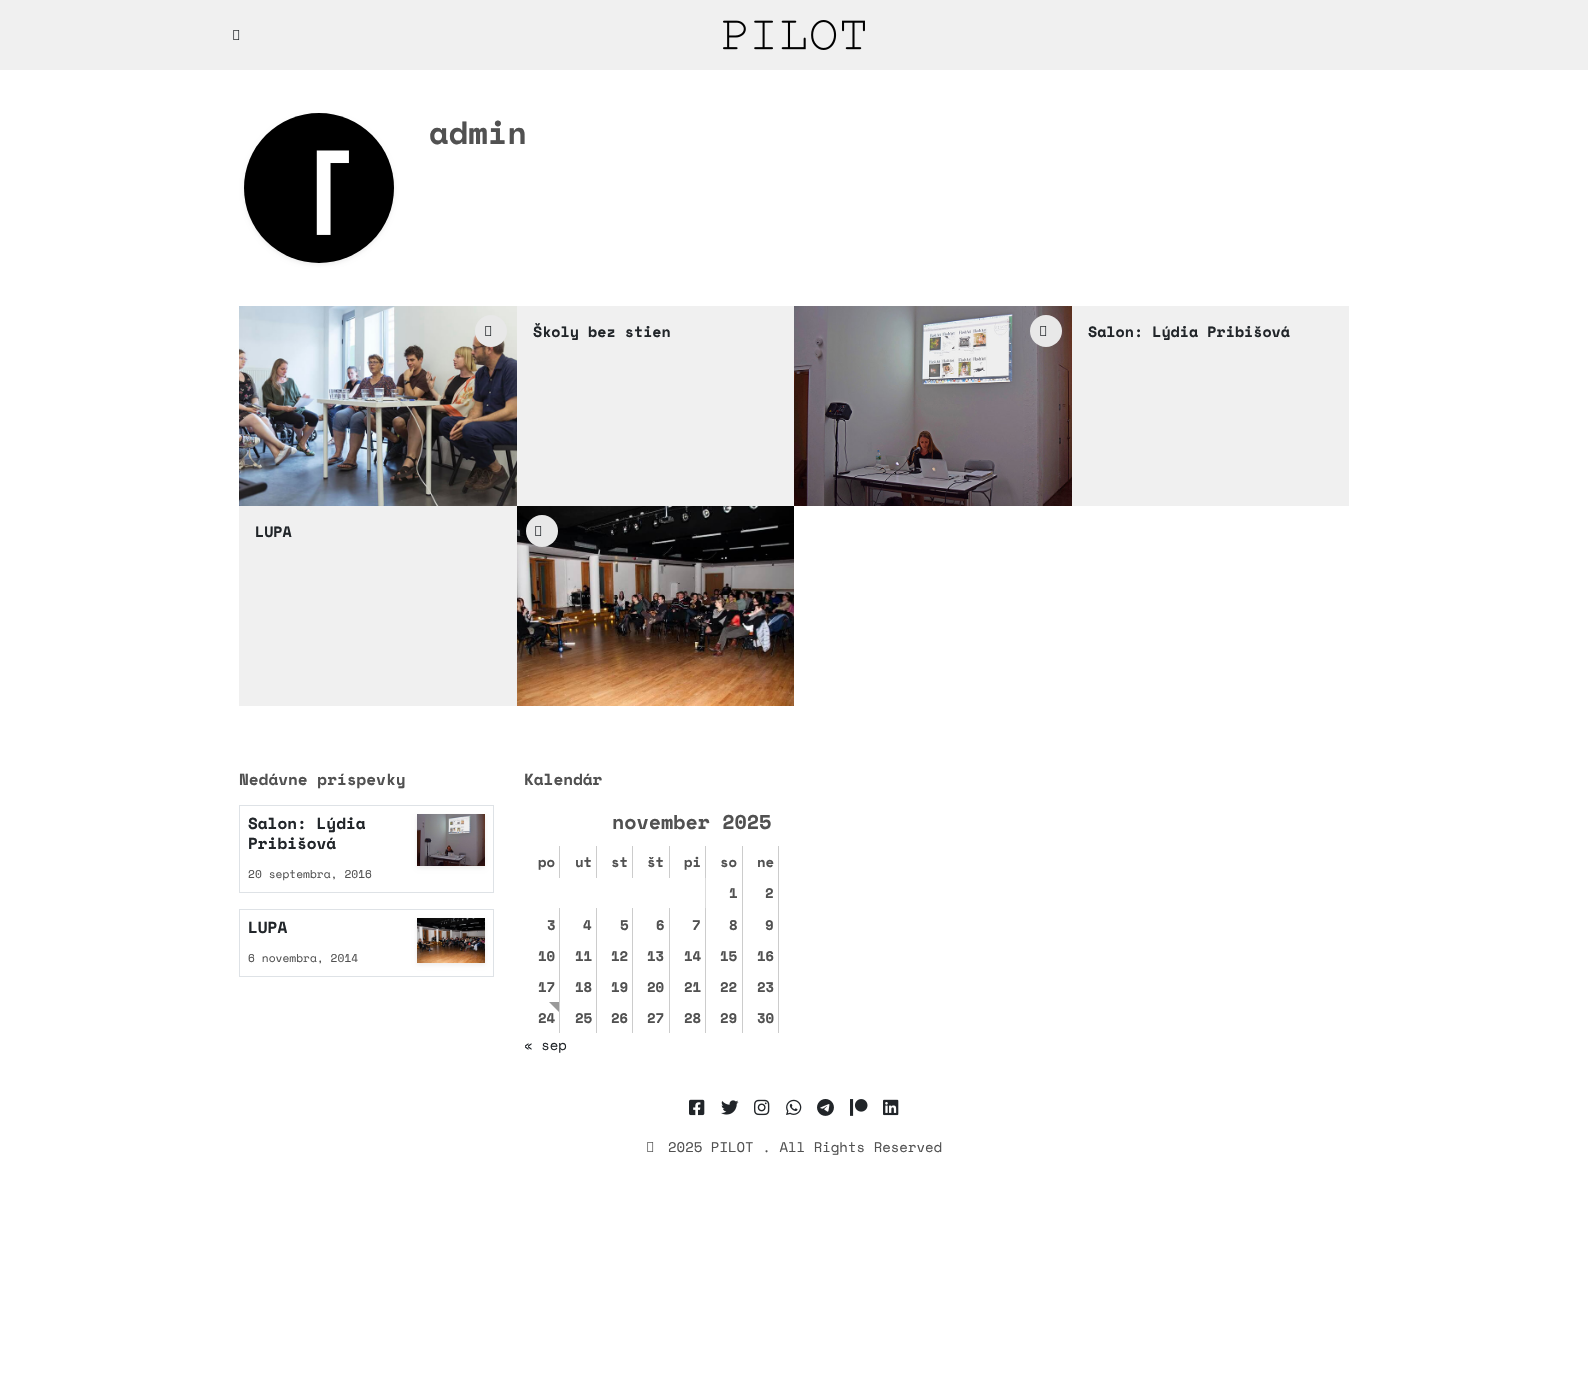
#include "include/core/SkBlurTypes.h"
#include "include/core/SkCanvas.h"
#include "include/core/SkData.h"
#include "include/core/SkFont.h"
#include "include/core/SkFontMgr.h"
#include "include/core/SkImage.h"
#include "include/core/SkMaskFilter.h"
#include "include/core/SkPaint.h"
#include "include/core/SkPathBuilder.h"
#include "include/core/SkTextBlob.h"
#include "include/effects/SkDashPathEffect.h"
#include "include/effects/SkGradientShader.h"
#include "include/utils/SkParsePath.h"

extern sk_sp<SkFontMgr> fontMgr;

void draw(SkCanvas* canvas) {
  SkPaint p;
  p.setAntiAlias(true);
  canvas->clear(SK_ColorWHITE);
  p.setColor(SkColorSetRGB(219, 219, 219));
  canvas->drawRect(SkRect::MakeLTRB(705, 877, 706, 909), p);
  p.setColor(SkColorSetRGB(240, 240, 240));
  canvas->drawRect(SkRect::MakeLTRB(0, 0, 1588, 70), p);
  canvas->drawImageRect(SkImages::DeferredFromEncodedData(SkData::MakeFromFileName("images/1.png")), SkRect::MakeLTRB(233, 30, 240, 40), SkSamplingOptions());
  canvas->drawImageRect(SkImages::DeferredFromEncodedData(SkData::MakeFromFileName("images/2.png")), SkRect::MakeLTRB(723, 20, 865, 50), SkSamplingOptions());
  p.setColor(SkColorSetARGB(18, 0, 0, 0));
  p.setMaskFilter(SkMaskFilter::MakeBlur(kNormal_SkBlurStyle, 2));
  canvas->drawRoundRect(SkRect::MakeLTRB(244, 115, 394, 265), 75, 75, p);
  p.setMaskFilter(nullptr);
  canvas->drawImageRect(SkImages::DeferredFromEncodedData(SkData::MakeFromFileName("images/3.png")), SkRect::MakeLTRB(244, 113, 394, 263), SkSamplingOptions());
  canvas->drawImageRect(SkImages::DeferredFromEncodedData(SkData::MakeFromFileName("images/4.png")), SkRect::MakeLTRB(239, 306, 517, 506), SkSamplingOptions());
  p.setColor(SkColorSetRGB(232, 232, 232));
  canvas->drawCircle(491, 331, 16, p);
  canvas->drawImageRect(SkImages::DeferredFromEncodedData(SkData::MakeFromFileName("images/5.png")), SkRect::MakeLTRB(485, 326, 492, 336), SkSamplingOptions());
  p.setColor(SkColorSetRGB(240, 240, 240));
  canvas->drawRect(SkRect::MakeLTRB(517, 306, 794, 506), p);
  canvas->drawImageRect(SkImages::DeferredFromEncodedData(SkData::MakeFromFileName("images/6.png")), SkRect::MakeLTRB(794, 306, 1072, 506), SkSamplingOptions());
  p.setColor(SkColorSetRGB(232, 232, 232));
  canvas->drawCircle(1046, 331, 16, p);
  canvas->drawImageRect(SkImages::DeferredFromEncodedData(SkData::MakeFromFileName("images/5.png")), SkRect::MakeLTRB(1040, 326, 1047, 336), SkSamplingOptions());
  p.setColor(SkColorSetRGB(240, 240, 240));
  canvas->drawRect(SkRect::MakeLTRB(1072, 306, 1349, 506), p);
  canvas->drawRect(SkRect::MakeLTRB(239, 506, 517, 706), p);
  canvas->drawImageRect(SkImages::DeferredFromEncodedData(SkData::MakeFromFileName("images/7.png")), SkRect::MakeLTRB(517, 506, 794, 706), SkSamplingOptions());
  p.setColor(SkColorSetRGB(232, 232, 232));
  canvas->drawCircle(542, 531, 16, p);
  canvas->drawImageRect(SkImages::DeferredFromEncodedData(SkData::MakeFromFileName("images/5.png")), SkRect::MakeLTRB(535, 526, 542, 536), SkSamplingOptions());
  p.setStyle(SkPaint::kStroke_Style);
  p.setStrokeWidth(1);
  p.setColor(SkColorSetRGB(222, 226, 230));
  canvas->drawRect(SkRect::MakeLTRB(239.5f, 805.5f, 493.5f, 892.5f), p);
  p.setStyle(SkPaint::kFill_Style);
  p.setColor(SkColorSetARGB(18, 0, 0, 0));
  p.setMaskFilter(SkMaskFilter::MakeBlur(kNormal_SkBlurStyle, 2));
  canvas->drawRect(SkRect::MakeLTRB(417, 816, 485, 868), p);
  p.setMaskFilter(nullptr);
  canvas->drawImageRect(SkImages::DeferredFromEncodedData(SkData::MakeFromFileName("images/8.png")), SkRect::MakeLTRB(417, 814, 485, 866), SkSamplingOptions());
  p.setStyle(SkPaint::kStroke_Style);
  p.setColor(SkColorSetRGB(222, 226, 230));
  canvas->drawRect(SkRect::MakeLTRB(239.5f, 909.5f, 493.5f, 976.5f), p);
  p.setStyle(SkPaint::kFill_Style);
  p.setColor(SkColorSetARGB(18, 0, 0, 0));
  p.setMaskFilter(SkMaskFilter::MakeBlur(kNormal_SkBlurStyle, 2));
  canvas->drawRect(SkRect::MakeLTRB(417, 920, 485, 965), p);
  p.setMaskFilter(nullptr);
  canvas->drawImageRect(SkImages::DeferredFromEncodedData(SkData::MakeFromFileName("images/9.png")), SkRect::MakeLTRB(417, 918, 485, 963), SkSamplingOptions());
  p.setColor(SkColorSetRGB(204, 204, 204));
  canvas->drawRect(SkRect::MakeLTRB(778, 846, 779, 878), p);
  canvas->drawRect(SkRect::MakeLTRB(559, 846, 560, 878), p);
  canvas->drawRect(SkRect::MakeLTRB(596, 846, 597, 878), p);
  canvas->drawRect(SkRect::MakeLTRB(632, 846, 633, 878), p);
  canvas->drawRect(SkRect::MakeLTRB(669, 846, 670, 878), p);
  canvas->drawRect(SkRect::MakeLTRB(705, 846, 706, 878), p);
  canvas->drawRect(SkRect::MakeLTRB(559, 908, 560, 1033), p);
  p.setColor(SkColorSetRGB(153, 153, 153));
  canvas->drawPath(SkPathBuilder().moveTo(549, 1002).lineTo(559, 1002).lineTo(559, 1012).close().detach(), p);
  p.setColor(SkColorSetRGB(204, 204, 204));
  canvas->drawRect(SkRect::MakeLTRB(596, 908, 597, 1033), p);
  canvas->drawRect(SkRect::MakeLTRB(632, 908, 633, 1033), p);
  canvas->drawRect(SkRect::MakeLTRB(669, 908, 670, 1033), p);
  canvas->drawRect(SkRect::MakeLTRB(705, 908, 706, 1033), p);
  canvas->drawRect(SkRect::MakeLTRB(742, 846, 743, 1033), p);
  canvas->drawRect(SkRect::MakeLTRB(778, 877, 779, 1033), p);
  canvas->drawImageRect(SkImages::DeferredFromEncodedData(SkData::MakeFromFileName("images/10.png")), SkRect::MakeLTRB(689, 1099, 705, 1116), SkSamplingOptions());
  canvas->drawImageRect(SkImages::DeferredFromEncodedData(SkData::MakeFromFileName("images/11.png")), SkRect::MakeLTRB(721, 1100, 739, 1115), SkSamplingOptions());
  canvas->drawImageRect(SkImages::DeferredFromEncodedData(SkData::MakeFromFileName("images/12.png")), SkRect::MakeLTRB(754, 1099, 770, 1116), SkSamplingOptions());
  canvas->drawImageRect(SkImages::DeferredFromEncodedData(SkData::MakeFromFileName("images/13.png")), SkRect::MakeLTRB(786, 1099, 802, 1115), SkSamplingOptions());
  canvas->drawImageRect(SkImages::DeferredFromEncodedData(SkData::MakeFromFileName("images/14.png")), SkRect::MakeLTRB(817, 1099, 834, 1116), SkSamplingOptions());
  canvas->drawImageRect(SkImages::DeferredFromEncodedData(SkData::MakeFromFileName("images/15.png")), SkRect::MakeLTRB(850, 1099, 868, 1116), SkSamplingOptions());
  canvas->drawImageRect(SkImages::DeferredFromEncodedData(SkData::MakeFromFileName("images/16.png")), SkRect::MakeLTRB(883, 1099, 899, 1116), SkSamplingOptions());
  canvas->drawImageRect(SkImages::DeferredFromEncodedData(SkData::MakeFromFileName("images/17.png")), SkRect::MakeLTRB(647, 1142, 654, 1152), SkSamplingOptions());
  SkFont font1(fontMgr->matchFamilyStyle("Space Mono", SkFontStyle::Bold()), 32);
  font1.setSubpixel(true);
  p.setColor(SkColorSetRGB(81, 81, 81));
  canvas->drawString("admin", 429, 144, font1, p);
  SkFont font2(fontMgr->matchFamilyStyle("Space Mono", SkFontStyle::Bold()), 15);
  font2.setSubpixel(true);
  p.setColor(SkColorSetRGB(33, 37, 41));
  canvas->drawString("Školy bez stien", 533, 337, font2, p);
  canvas->drawString("Salon: Lýdia Pribišová", 1088, 337, font2, p);
  canvas->drawString("LUPA", 255, 537, font2, p);
  SkFont font3(fontMgr->matchFamilyStyle("Space Mono", SkFontStyle::Bold()), 16);
  font3.setSubpixel(true);
  p.setColor(SkColorSetRGB(81, 81, 81));
  canvas->drawString("Nedávne príspevky", 239, 785, font3, p);
  p.setColor(SkColorSetRGB(33, 37, 41));
  canvas->drawString("Salon: Lýdia", 248, 829, font3, p);
  canvas->drawString("Pribišová", 248, 849, font3, p);
  SkFont font4(fontMgr->matchFamilyStyle("Space Mono", SkFontStyle::Normal()), 11.25f);
  font4.setSubpixel(true);
  p.setColor(SkColorSetRGB(81, 81, 81));
  canvas->drawString("20 septembra, 2016", 248, 878, font4, p);
  p.setColor(SkColorSetRGB(33, 37, 41));
  canvas->drawString("LUPA", 248, 933, font3, p);
  p.setColor(SkColorSetRGB(81, 81, 81));
  canvas->drawString("6 novembra, 2014", 248, 962, font4, p);
  canvas->drawString("Kalendár", 524, 785, font3, p);
  SkFont font5(fontMgr->matchFamilyStyle("Space Mono", SkFontStyle::Bold()), 20);
  font5.setSubpixel(true);
  canvas->drawString("november 2025", 612, 829, font5, p);
  SkFont font6(fontMgr->matchFamilyStyle("Space Mono", SkFontStyle::Bold()), 14);
  font6.setSubpixel(true);
  canvas->drawString("po", 538, 867, font6, p);
  canvas->drawString("ut", 575, 867, font6, p);
  canvas->drawString("st", 611, 867, font6, p);
  canvas->drawString("št", 647, 867, font6, p);
  canvas->drawString("pi", 684, 867, font6, p);
  canvas->drawString("so", 720, 867, font6, p);
  canvas->drawString("ne", 757, 867, font6, p);
  canvas->drawString("1", 729, 898, font6, p);
  canvas->drawString("2", 765, 898, font6, p);
  canvas->drawString("3", 547, 930, font6, p);
  canvas->drawString("4", 583, 930, font6, p);
  canvas->drawString("5", 620, 930, font6, p);
  canvas->drawString("6", 656, 930, font6, p);
  canvas->drawString("7", 692, 930, font6, p);
  canvas->drawString("8", 729, 930, font6, p);
  canvas->drawString("9", 765, 930, font6, p);
  canvas->drawString("10", 538, 961, font6, p);
  canvas->drawString("11", 575, 961, font6, p);
  canvas->drawString("12", 611, 961, font6, p);
  canvas->drawString("13", 647, 961, font6, p);
  canvas->drawString("14", 684, 961, font6, p);
  canvas->drawString("15", 720, 961, font6, p);
  canvas->drawString("16", 757, 961, font6, p);
  canvas->drawString("17", 538, 992, font6, p);
  canvas->drawString("18", 575, 992, font6, p);
  canvas->drawString("19", 611, 992, font6, p);
  canvas->drawString("20", 647, 992, font6, p);
  canvas->drawString("21", 684, 992, font6, p);
  canvas->drawString("22", 720, 992, font6, p);
  canvas->drawString("23", 757, 992, font6, p);
  canvas->drawString("24", 538, 1023, font6, p);
  canvas->drawString("25", 575, 1023, font6, p);
  canvas->drawString("26", 611, 1023, font6, p);
  canvas->drawString("27", 647, 1023, font6, p);
  canvas->drawString("28", 684, 1023, font6, p);
  canvas->drawString("29", 720, 1023, font6, p);
  canvas->drawString("30", 757, 1023, font6, p);
  SkFont font7(fontMgr->matchFamilyStyle("Space Mono", SkFontStyle::Normal()), 14);
  font7.setSubpixel(true);
  p.setColor(SkColorSetRGB(33, 37, 41));
  canvas->drawString("« sep", 524, 1050, font7, p);
  p.setColor(SkColorSetRGB(81, 81, 81));
  canvas->drawString("2025 PILOT . All Rights Reserved", 668, 1152, font7, p);
}
